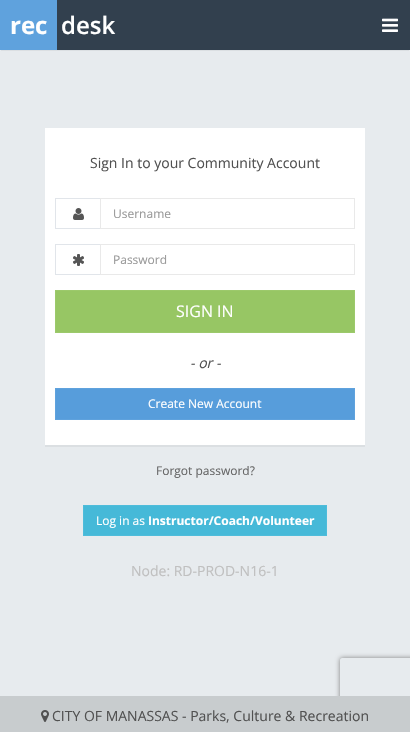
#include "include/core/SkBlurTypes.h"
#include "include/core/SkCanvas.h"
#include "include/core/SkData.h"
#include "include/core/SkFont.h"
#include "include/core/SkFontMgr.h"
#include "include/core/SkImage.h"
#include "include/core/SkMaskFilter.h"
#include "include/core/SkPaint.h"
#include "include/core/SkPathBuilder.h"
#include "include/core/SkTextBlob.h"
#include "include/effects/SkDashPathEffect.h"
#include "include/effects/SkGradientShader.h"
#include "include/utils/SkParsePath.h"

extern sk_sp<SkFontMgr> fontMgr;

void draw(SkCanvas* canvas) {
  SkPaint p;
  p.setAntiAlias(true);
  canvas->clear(SkColorSetRGB(231, 235, 238));
  p.setColor(SkColorSetRGB(219, 223, 226));
  canvas->drawRect(SkRect::MakeLTRB(1, 50, 409, 51), p);
  p.setColor(SkColorSetRGB(50, 64, 78));
  canvas->drawRect(SkRect::MakeLTRB(57, 0, 410, 50), p);
  p.setColor(SkColorSetRGB(95, 162, 221));
  canvas->drawRect(SkRect::MakeLTRB(0, 0, 57, 50), p);
  canvas->drawImageRect(SkImages::DeferredFromEncodedData(SkData::MakeFromFileName("images/1.png")), SkRect::MakeLTRB(382, 18, 398, 32), SkSamplingOptions());
  p.setColor(SkColorSetRGB(219, 223, 226));
  canvas->drawRect(SkRect::MakeLTRB(45, 445, 365, 447), p);
  p.setColor(SK_ColorWHITE);
  canvas->drawRect(SkRect::MakeLTRB(45, 128, 365, 445), p);
  p.setColor(SkColorSetRGB(225, 229, 234));
  canvas->drawRect(SkRect::MakeLTRB(55, 198, 100, 199), p);
  canvas->drawRect(SkRect::MakeLTRB(55, 228, 100, 229), p);
  canvas->drawRect(SkRect::MakeLTRB(55, 198, 56, 229), p);
  canvas->drawImageRect(SkImages::DeferredFromEncodedData(SkData::MakeFromFileName("images/2.png")), SkRect::MakeLTRB(73, 208, 84, 220), SkSamplingOptions());
  p.setStyle(SkPaint::kStroke_Style);
  p.setStrokeWidth(1);
  p.setColor(SkColorSetRGB(233, 233, 233));
  canvas->drawRect(SkRect::MakeLTRB(100.5f, 198.5f, 354.5f, 228.5f), p);
  p.setStyle(SkPaint::kFill_Style);
  p.setColor(SkColorSetRGB(225, 229, 234));
  canvas->drawRect(SkRect::MakeLTRB(55, 244, 100, 245), p);
  canvas->drawRect(SkRect::MakeLTRB(55, 274, 100, 275), p);
  canvas->drawRect(SkRect::MakeLTRB(55, 244, 56, 275), p);
  canvas->drawImageRect(SkImages::DeferredFromEncodedData(SkData::MakeFromFileName("images/3.png")), SkRect::MakeLTRB(73, 254, 84, 266), SkSamplingOptions());
  p.setStyle(SkPaint::kStroke_Style);
  p.setColor(SkColorSetRGB(233, 233, 233));
  canvas->drawRect(SkRect::MakeLTRB(100.5f, 244.5f, 354.5f, 274.5f), p);
  p.setStyle(SkPaint::kFill_Style);
  p.setColor(SkColorSetRGB(151, 198, 100));
  canvas->drawRect(SkRect::MakeLTRB(55.5f, 290.5f, 354.5f, 332.5f), p);
  p.setStyle(SkPaint::kStroke_Style);
  p.setColor(SkColorSetRGB(156, 201, 107));
  canvas->drawRect(SkRect::MakeLTRB(55.5f, 290.5f, 354.5f, 332.5f), p);
  p.setStyle(SkPaint::kFill_Style);
  p.setColor(SkColorSetRGB(87, 157, 219));
  canvas->drawRect(SkRect::MakeLTRB(55.5f, 388.5f, 354.5f, 419.5f), p);
  p.setStyle(SkPaint::kStroke_Style);
  p.setColor(SkColorSetRGB(95, 162, 221));
  canvas->drawRect(SkRect::MakeLTRB(55.5f, 388.5f, 354.5f, 419.5f), p);
  p.setStyle(SkPaint::kFill_Style);
  p.setColor(SkColorSetRGB(70, 185, 216));
  canvas->drawRect(SkRect::MakeLTRB(83.5f, 505.5f, 326.5f, 535.5f), p);
  p.setStyle(SkPaint::kStroke_Style);
  p.setColor(SkColorSetRGB(78, 188, 218));
  canvas->drawRect(SkRect::MakeLTRB(83.5f, 505.5f, 326.5f, 535.5f), p);
  canvas->save();
  canvas->clipPath(SkPathBuilder(SkPathFillType::kEvenOdd).moveTo(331, 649).lineTo(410, 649).lineTo(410, 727).lineTo(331, 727).close().moveTo(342, 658).lineTo(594, 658).cubicTo(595, 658, 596, 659, 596, 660).lineTo(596, 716).cubicTo(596, 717, 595, 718, 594, 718).lineTo(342, 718).cubicTo(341, 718, 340, 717, 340, 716).lineTo(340, 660).cubicTo(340, 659, 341, 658, 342, 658).close().detach(), true);
  p.setStyle(SkPaint::kFill_Style);
  p.setColor(SkColorSetRGB(128, 128, 128));
  p.setMaskFilter(SkMaskFilter::MakeBlur(kNormal_SkBlurStyle, 2.5f));
  canvas->drawRoundRect(SkRect::MakeLTRB(340, 658, 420, 718), 2, 2, p);
  p.setMaskFilter(nullptr);
  canvas->restore();
  p.setColor(SkColorSetRGB(200, 204, 206));
  canvas->drawRect(SkRect::MakeLTRB(0, 696, 410, 732), p);
  canvas->drawImageRect(SkImages::DeferredFromEncodedData(SkData::MakeFromFileName("images/4.png")), SkRect::MakeLTRB(41, 710, 49, 722), SkSamplingOptions());
  SkFont font1(fontMgr->matchFamilyStyle("Open Sans", SkFontStyle::Bold()), 24);
  font1.setSubpixel(true);
  p.setColor(SK_ColorWHITE);
  canvas->drawString("rec", 10, 34, font1, p);
  SkFont font2(fontMgr->matchFamilyStyle("Open Sans", SkFontStyle(600, SkFontStyle::kNormal_Width, SkFontStyle::kUpright_Slant)), 24);
  font2.setSubpixel(true);
  canvas->drawString("desk", 61, 34, font2, p);
  SkFont font3(fontMgr->matchFamilyStyle("Open Sans", SkFontStyle::Normal()), 14);
  font3.setSubpixel(true);
  p.setColor(SkColorSetRGB(81, 81, 81));
  canvas->drawString("Sign In to your Community Account", 90, 168, font3, p);
  SkFont font4(fontMgr->matchFamilyStyle("Open Sans", SkFontStyle::Normal()), 12);
  font4.setSubpixel(true);
  p.setColor(SkColorSetRGB(153, 153, 153));
  canvas->drawString("Username", 113, 218, font4, p);
  canvas->drawString("Password", 113, 264, font4, p);
  SkFont font5(fontMgr->matchFamilyStyle("Open Sans", SkFontStyle::Normal()), 16);
  font5.setSubpixel(true);
  p.setColor(SK_ColorWHITE);
  canvas->drawString("SIGN IN", 176, 317, font5, p);
  SkFont font6(fontMgr->matchFamilyStyle("Open Sans", SkFontStyle::Italic()), 14);
  font6.setSubpixel(true);
  p.setColor(SkColorSetRGB(81, 81, 81));
  canvas->drawString("- or -", 190, 368, font6, p);
  p.setColor(SK_ColorWHITE);
  canvas->drawString("Create New Account", 148, 408, font4, p);
  p.setColor(SkColorSetRGB(102, 102, 102));
  canvas->drawString("Forgot password?", 156, 475, font4, p);
  p.setColor(SK_ColorWHITE);
  canvas->drawString("Log in as", 96, 525, font4, p);
  SkFont font7(fontMgr->matchFamilyStyle("Open Sans", SkFontStyle::Bold()), 12);
  font7.setSubpixel(true);
  canvas->drawString("Instructor/Coach/Volunteer", 148, 525, font7, p);
  p.setColor(SkColorSetRGB(192, 192, 192));
  canvas->drawString("Node: RD-PROD-N16-1", 131, 576, font3, p);
  p.setColor(SkColorSetRGB(81, 81, 81));
  canvas->drawString("CITY OF MANASSAS - Parks, Culture & Recreation", 52, 721, font3, p);
}
